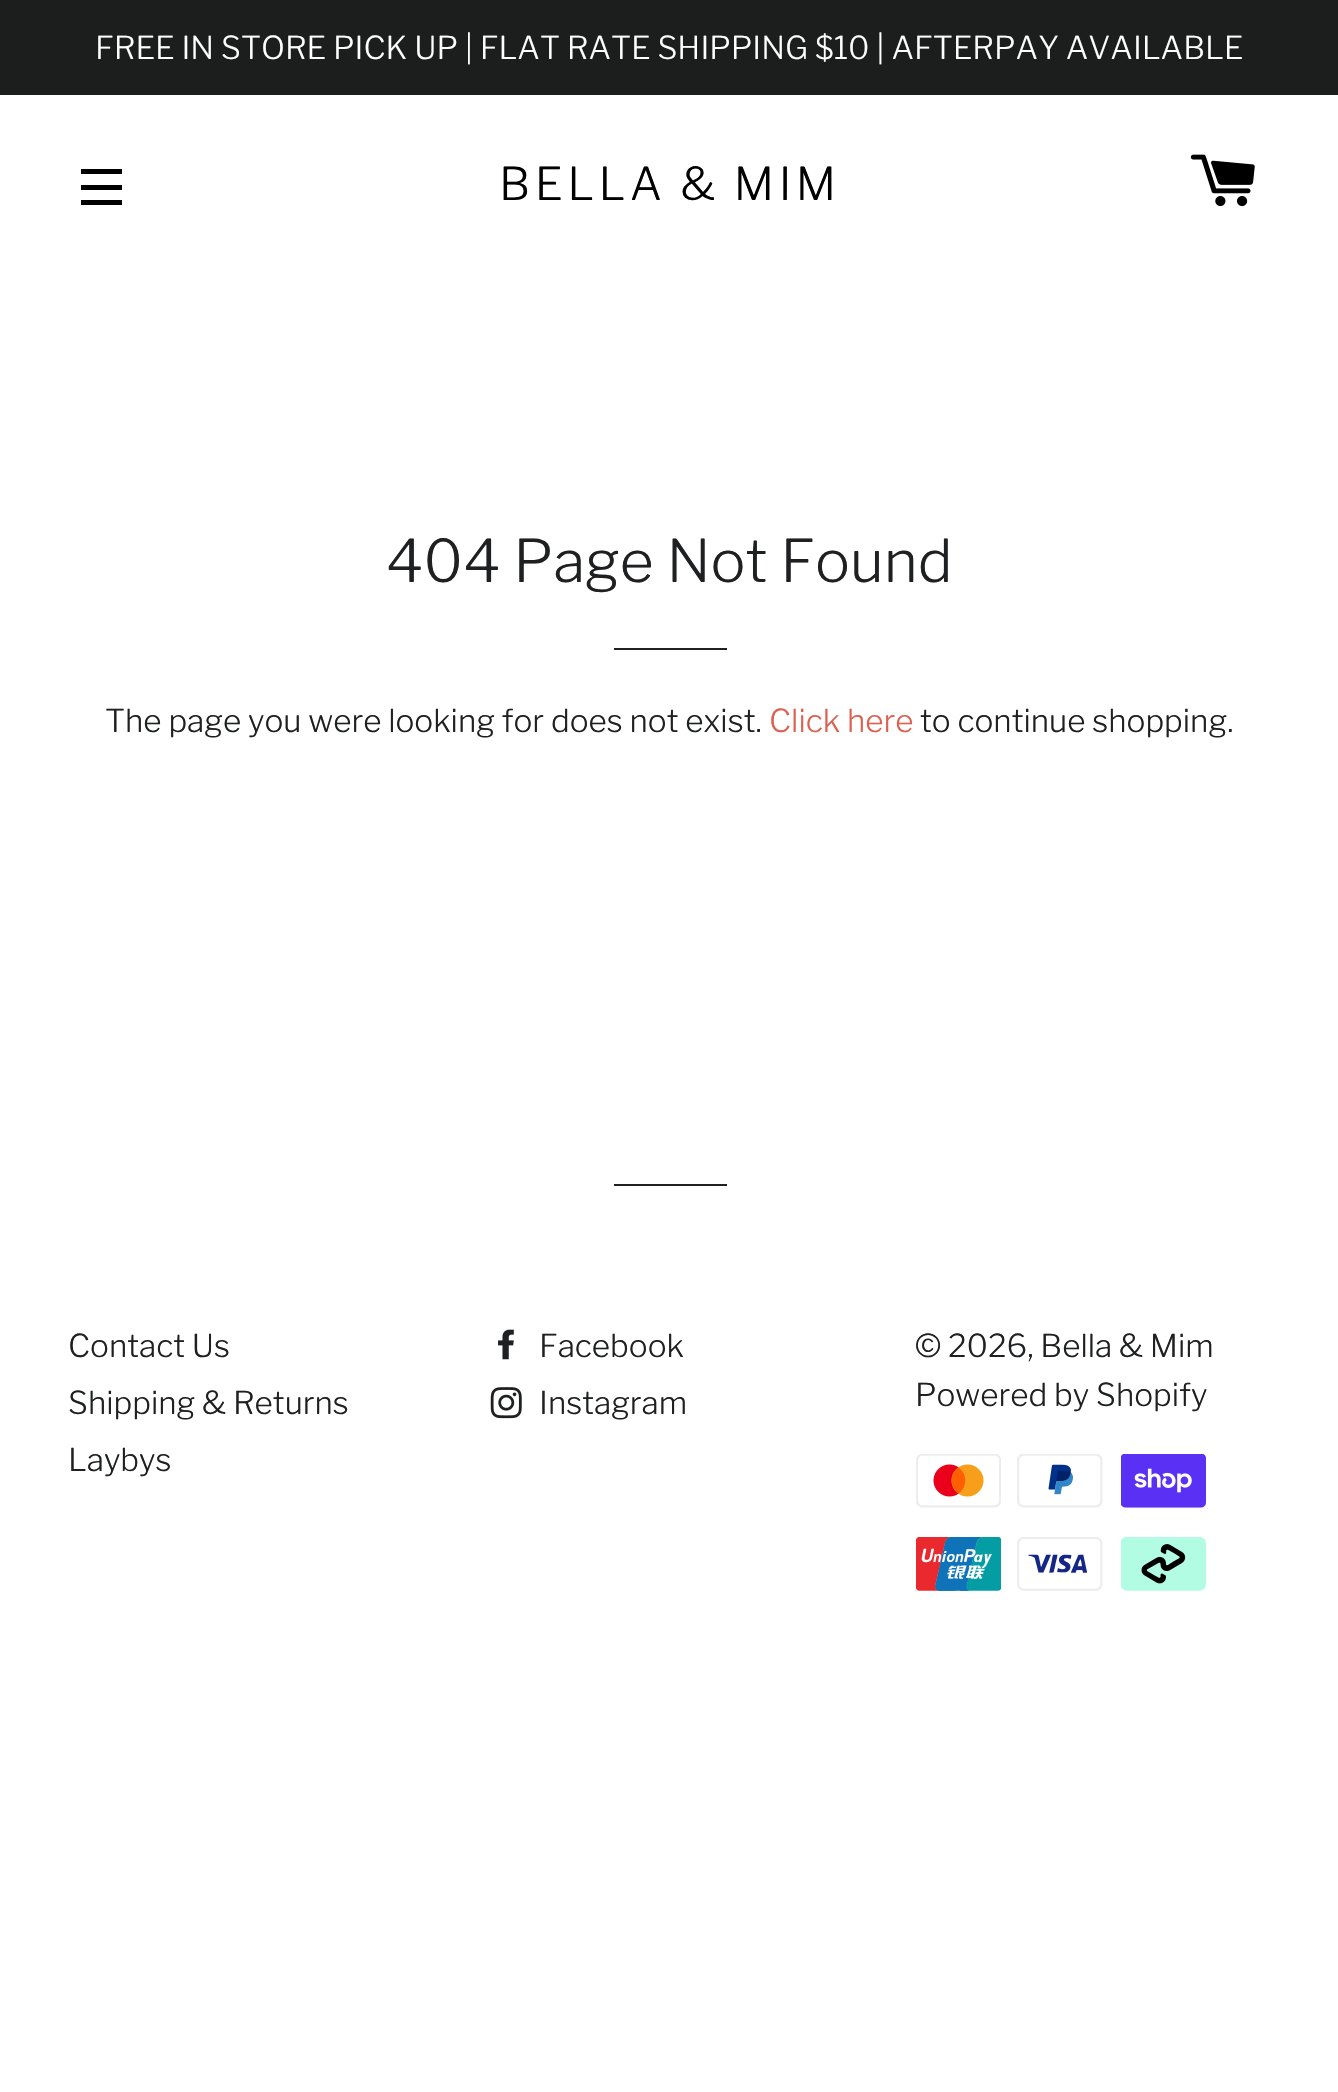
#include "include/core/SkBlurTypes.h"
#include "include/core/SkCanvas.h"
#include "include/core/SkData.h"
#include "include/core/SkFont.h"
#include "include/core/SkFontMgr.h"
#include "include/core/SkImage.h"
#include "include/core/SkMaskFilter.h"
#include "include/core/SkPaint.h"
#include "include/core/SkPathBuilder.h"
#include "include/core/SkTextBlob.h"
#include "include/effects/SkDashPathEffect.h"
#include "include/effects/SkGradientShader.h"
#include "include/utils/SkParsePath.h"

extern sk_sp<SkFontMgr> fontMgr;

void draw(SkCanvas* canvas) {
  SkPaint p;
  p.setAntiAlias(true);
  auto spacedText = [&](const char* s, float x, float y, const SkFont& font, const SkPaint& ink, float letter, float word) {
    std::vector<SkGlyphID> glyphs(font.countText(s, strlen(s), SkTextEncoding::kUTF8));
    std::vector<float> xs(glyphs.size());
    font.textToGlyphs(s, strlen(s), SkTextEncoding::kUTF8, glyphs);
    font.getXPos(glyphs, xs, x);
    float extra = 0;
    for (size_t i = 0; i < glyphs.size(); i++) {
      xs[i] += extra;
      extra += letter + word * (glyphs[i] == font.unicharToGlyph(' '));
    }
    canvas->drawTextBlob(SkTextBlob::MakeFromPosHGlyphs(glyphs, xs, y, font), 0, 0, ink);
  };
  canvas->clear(SK_ColorWHITE);
  p.setColor(SkColorSetRGB(28, 29, 29));
  canvas->drawRect(SkRect::MakeLTRB(0, 0, 1338, 95), p);
  p.setColor(SK_ColorBLACK);
  canvas->drawRect(SkRect::MakeLTRB(81, 169, 122, 174), p);
  canvas->drawRect(SkRect::MakeLTRB(81, 185, 122, 190), p);
  canvas->drawRect(SkRect::MakeLTRB(81, 200, 122, 205), p);
  canvas->drawImageRect(SkImages::DeferredFromEncodedData(SkData::MakeFromFileName("images/1.png")), SkRect::MakeLTRB(1190, 154, 1255, 207), SkSamplingOptions());
  p.setColor(SkColorSetRGB(31, 32, 33));
  canvas->drawRect(SkRect::MakeLTRB(614, 648, 727, 650), p);
  canvas->drawRect(SkRect::MakeLTRB(614, 1184, 727, 1186), p);
  canvas->drawImageRect(SkImages::DeferredFromEncodedData(SkData::MakeFromFileName("images/2.png")), SkRect::MakeLTRB(498, 1329, 514, 1360), SkSamplingOptions());
  canvas->drawImageRect(SkImages::DeferredFromEncodedData(SkData::MakeFromFileName("images/3.png")), SkRect::MakeLTRB(490, 1387, 522, 1419), SkSamplingOptions());
  canvas->drawImageRect(SkImages::DeferredFromEncodedData(SkData::MakeFromFileName("images/4.png")), SkRect::MakeLTRB(916, 1454, 1001, 1508), SkSamplingOptions());
  canvas->drawImageRect(SkImages::DeferredFromEncodedData(SkData::MakeFromFileName("images/5.png")), SkRect::MakeLTRB(1017, 1454, 1103, 1508), SkSamplingOptions());
  canvas->drawImageRect(SkImages::DeferredFromEncodedData(SkData::MakeFromFileName("images/6.png")), SkRect::MakeLTRB(1121, 1454, 1206, 1508), SkSamplingOptions());
  canvas->drawImageRect(SkImages::DeferredFromEncodedData(SkData::MakeFromFileName("images/7.png")), SkRect::MakeLTRB(916, 1537, 1001, 1591), SkSamplingOptions());
  canvas->drawImageRect(SkImages::DeferredFromEncodedData(SkData::MakeFromFileName("images/8.png")), SkRect::MakeLTRB(1017, 1537, 1103, 1591), SkSamplingOptions());
  canvas->drawImageRect(SkImages::DeferredFromEncodedData(SkData::MakeFromFileName("images/9.png")), SkRect::MakeLTRB(1121, 1537, 1206, 1591), SkSamplingOptions());
  SkFont font1(fontMgr->matchFamilyStyle("Libre Franklin", SkFontStyle(300, SkFontStyle::kNormal_Width, SkFontStyle::kUpright_Slant)), 31.5f);
  font1.setSubpixel(true);
  p.setColor(SK_ColorWHITE);
  canvas->drawString("FREE IN STORE PICK UP | FLAT RATE SHIPPING $10 | AFTERPAY AVAILABLE", 95, 59, font1, p);
  SkFont font2(fontMgr->matchFamilyStyle("Libre Franklin", SkFontStyle(300, SkFontStyle::kNormal_Width, SkFontStyle::kUpright_Slant)), 45);
  font2.setSubpixel(true);
  p.setColor(SK_ColorBLACK);
  spacedText("BELLA & MIM", 499, 200, font2, p, 4.5f, 0);
  SkFont font3(fontMgr->matchFamilyStyle("Libre Franklin", SkFontStyle(300, SkFontStyle::kNormal_Width, SkFontStyle::kUpright_Slant)), 58.5f);
  font3.setSubpixel(true);
  p.setColor(SkColorSetRGB(31, 32, 33));
  canvas->drawString("404 Page Not Found", 386, 582, font3, p);
  canvas->drawString("The page you were looking for does not exist.", 105, 732, font1, p);
  p.setColor(SkColorSetRGB(219, 97, 80));
  canvas->drawString("Click here", 769, 732, font1, p);
  p.setColor(SkColorSetRGB(31, 32, 33));
  canvas->drawString("to continue shopping.", 920, 732, font1, p);
  canvas->drawString("Contact Us", 68, 1357, font1, p);
  canvas->drawString("Shipping & Returns", 68, 1414, font1, p);
  canvas->drawString("Laybys", 68, 1471, font1, p);
  canvas->drawString("Facebook", 539, 1357, font1, p);
  canvas->drawString("Instagram", 539, 1414, font1, p);
  canvas->drawString("© 2026, Bella & Mim", 915, 1357, font1, p);
  canvas->drawString("Powered by Shopify", 915, 1406, font1, p);
}
